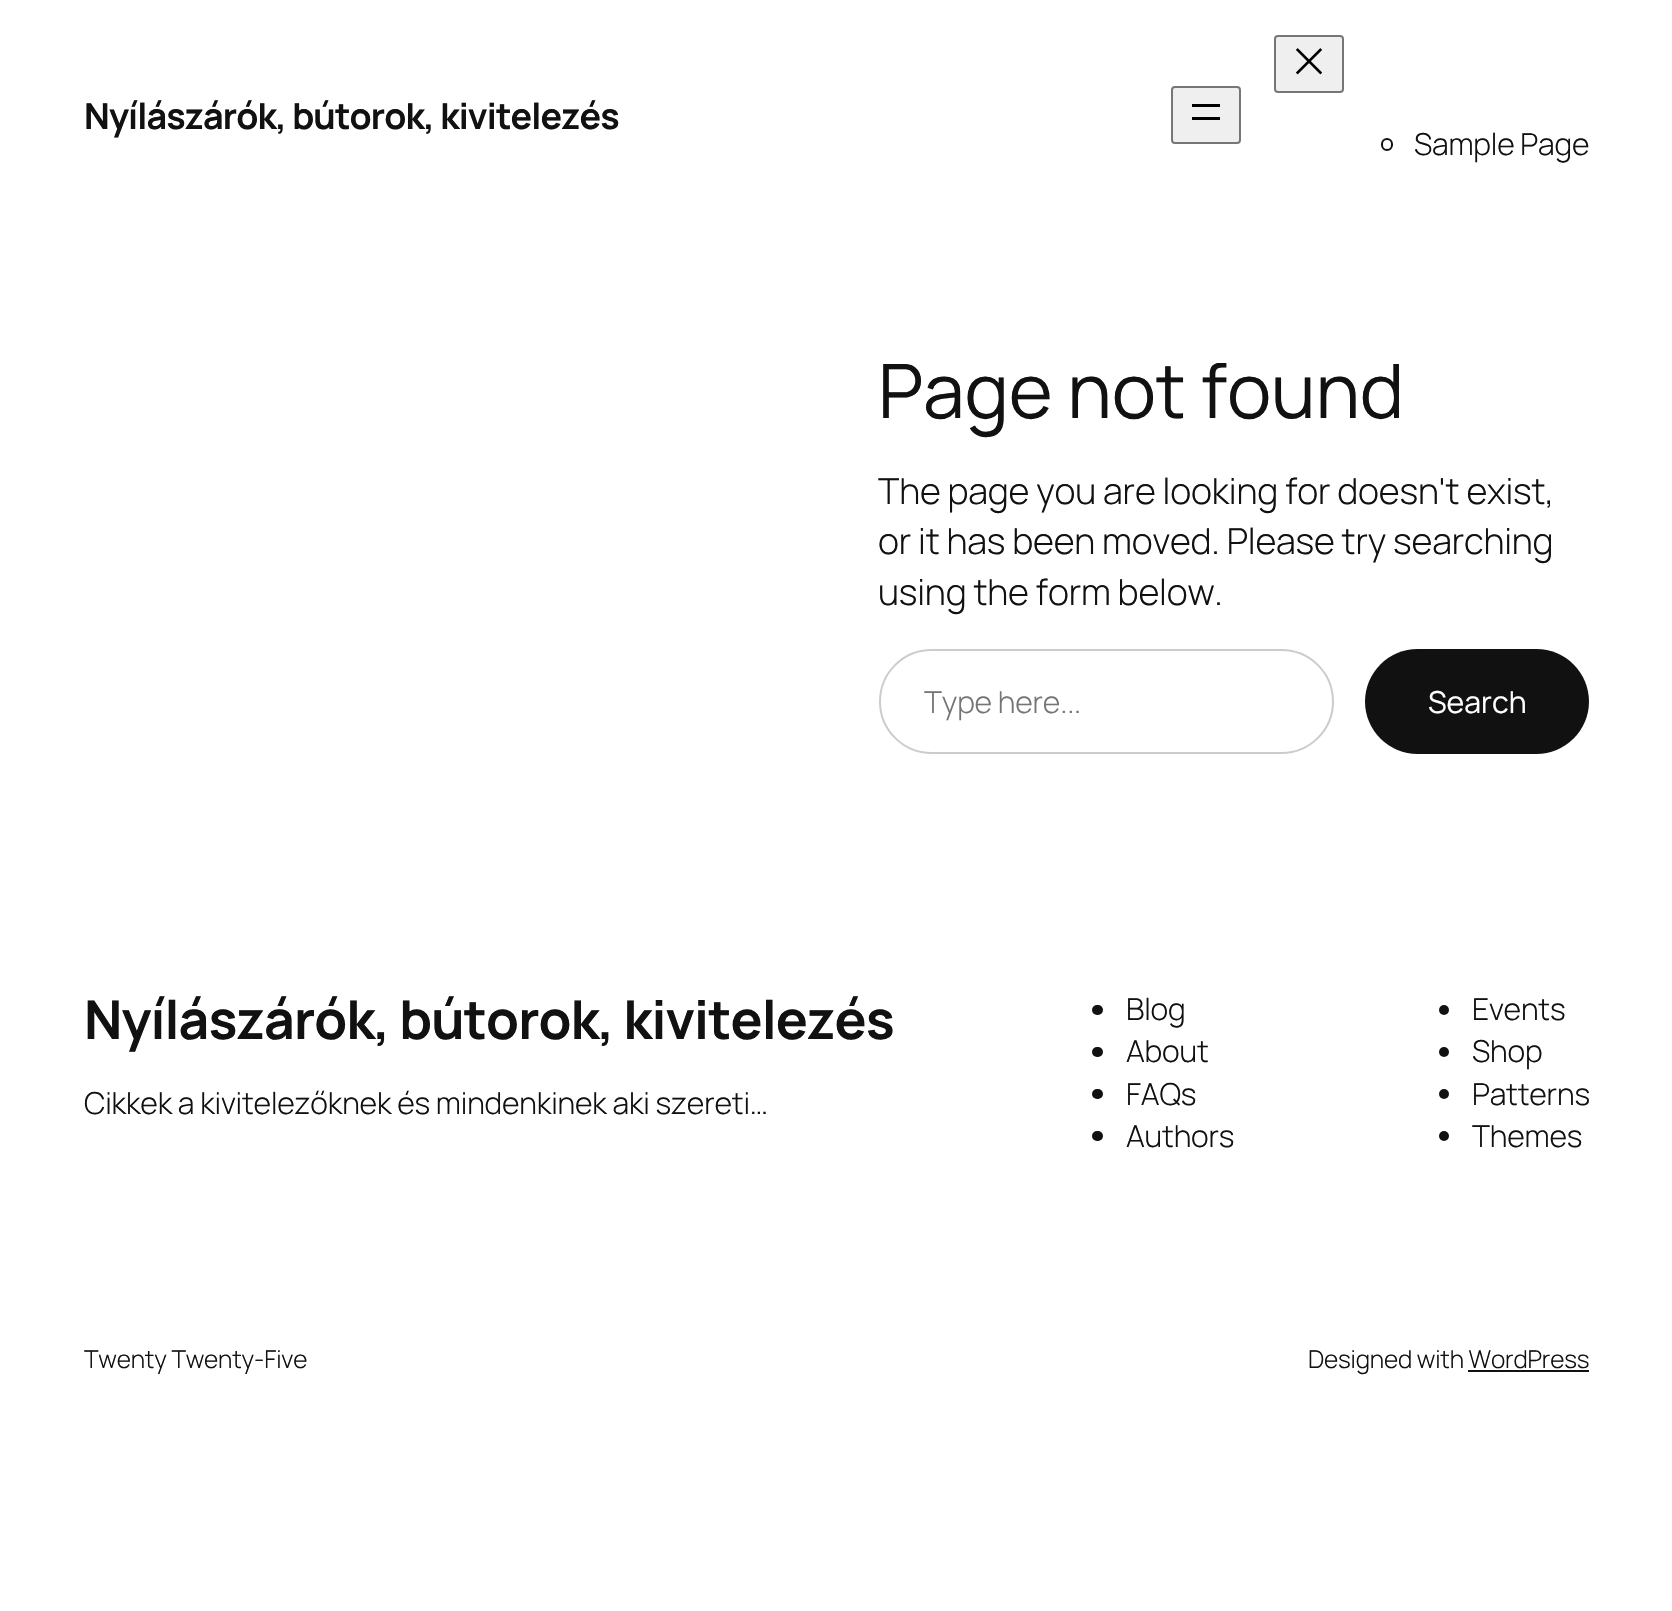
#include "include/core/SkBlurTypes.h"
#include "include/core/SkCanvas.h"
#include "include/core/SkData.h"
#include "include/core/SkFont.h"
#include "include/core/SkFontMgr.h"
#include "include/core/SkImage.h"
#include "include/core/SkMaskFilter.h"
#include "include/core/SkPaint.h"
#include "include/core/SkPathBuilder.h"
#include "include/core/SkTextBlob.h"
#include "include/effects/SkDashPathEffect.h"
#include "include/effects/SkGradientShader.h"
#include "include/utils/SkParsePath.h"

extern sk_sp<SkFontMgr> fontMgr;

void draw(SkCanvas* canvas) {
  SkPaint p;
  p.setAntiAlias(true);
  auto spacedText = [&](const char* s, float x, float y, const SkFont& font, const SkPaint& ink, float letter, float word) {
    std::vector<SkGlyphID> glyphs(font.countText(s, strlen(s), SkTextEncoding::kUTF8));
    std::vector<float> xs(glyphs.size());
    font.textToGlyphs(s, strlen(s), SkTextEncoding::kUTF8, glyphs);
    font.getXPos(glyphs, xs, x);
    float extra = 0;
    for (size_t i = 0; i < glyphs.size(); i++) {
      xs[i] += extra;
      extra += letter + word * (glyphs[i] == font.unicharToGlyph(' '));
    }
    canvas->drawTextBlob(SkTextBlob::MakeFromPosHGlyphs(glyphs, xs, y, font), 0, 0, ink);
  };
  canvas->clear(SK_ColorWHITE);
  p.setColor(SkColorSetRGB(239, 239, 239));
  canvas->drawRoundRect(SkRect::MakeLTRB(1172, 87, 1240, 143), 3, 3, p);
  p.setStyle(SkPaint::kStroke_Style);
  p.setStrokeWidth(2);
  p.setColor(SkColorSetRGB(118, 118, 118));
  canvas->drawRoundRect(SkRect::MakeLTRB(1172, 87, 1240, 143), 3, 3, p);
  p.setStyle(SkPaint::kFill_Style);
  p.setColor(SK_ColorBLACK);
  canvas->drawRect(SkRect::MakeLTRB(1192, 104, 1220, 107), p);
  canvas->drawRect(SkRect::MakeLTRB(1192, 117, 1220, 120), p);
  p.setColor(SkColorSetRGB(239, 239, 239));
  canvas->drawRoundRect(SkRect::MakeLTRB(1275, 36, 1343, 92), 3, 3, p);
  p.setStyle(SkPaint::kStroke_Style);
  p.setColor(SkColorSetRGB(118, 118, 118));
  canvas->drawRoundRect(SkRect::MakeLTRB(1275, 36, 1343, 92), 3, 3, p);
  canvas->drawImageRect(SkImages::DeferredFromEncodedData(SkData::MakeFromFileName("images/1.png")), SkRect::MakeLTRB(1295, 48, 1323, 75), SkSamplingOptions());
  p.setColor(SkColorSetRGB(17, 17, 17));
  canvas->drawRoundRect(SkRect::MakeLTRB(1382, 139, 1392, 150), 5, 5, p);
  p.setColor(SkColorSetRGB(204, 204, 204));
  canvas->drawRoundRect(SkRect::MakeLTRB(880, 650, 1333, 753), 51.5f, 51.5f, p);
  p.setStyle(SkPaint::kFill_Style);
  p.setColor(SkColorSetRGB(17, 17, 17));
  canvas->drawRoundRect(SkRect::MakeLTRB(1365, 649, 1589, 754), 52.5f, 52.5f, p);
  canvas->drawRoundRect(SkRect::MakeLTRB(1092, 1005, 1103, 1015), 5, 5, p);
  canvas->drawRoundRect(SkRect::MakeLTRB(1092, 1047, 1103, 1057), 5, 5, p);
  canvas->drawRoundRect(SkRect::MakeLTRB(1092, 1089, 1103, 1099), 5, 5, p);
  canvas->drawRoundRect(SkRect::MakeLTRB(1092, 1131, 1103, 1141), 5, 5, p);
  canvas->drawCircle(1444, 1010, 5, p);
  canvas->drawCircle(1444, 1052, 5, p);
  canvas->drawCircle(1444, 1094, 5, p);
  canvas->drawCircle(1444, 1136, 5, p);
  canvas->drawRect(SkRect::MakeLTRB(1468, 1370, 1589, 1372), p);
  SkFont font1(fontMgr->matchFamilyStyle("Manrope", SkFontStyle::Bold()), 35.9f);
  font1.setSubpixel(true);
  spacedText("Nyílászárók, bútorok, kivitelezés", 84, 129, font1, p, -0.9f, 0);
  SkFont font2(fontMgr->matchFamilyStyle("Manrope", SkFontStyle(300, SkFontStyle::kNormal_Width, SkFontStyle::kUpright_Slant)), 30.2f);
  font2.setSubpixel(true);
  spacedText("Sample Page", 1414, 155, font2, p, -0.18f, 0);
  SkFont font3(fontMgr->matchFamilyStyle("Manrope", SkFontStyle::Normal()), 75);
  font3.setSubpixel(true);
  spacedText("Page not found", 878, 418, font3, p, -0.18f, 0);
  SkFont font4(fontMgr->matchFamilyStyle("Manrope", SkFontStyle(300, SkFontStyle::kNormal_Width, SkFontStyle::kUpright_Slant)), 35.9f);
  font4.setSubpixel(true);
  spacedText("The page you are looking for doesn't exist,", 878, 504, font4, p, -0.18f, 0);
  spacedText("or it has been moved. Please try searching", 878, 554, font4, p, -0.18f, 0);
  spacedText("using the form below.", 878, 605, font4, p, -0.18f, 0);
  p.setColor(SkColorSetRGB(117, 117, 117));
  spacedText("Type here...", 924, 713, font2, p, -0.18f, 0);
  SkFont font5(fontMgr->matchFamilyStyle("Manrope", SkFontStyle::Normal()), 30.2f);
  font5.setSubpixel(true);
  p.setColor(SK_ColorWHITE);
  canvas->drawString("Search", 1428, 713, font5, p);
  SkFont font6(fontMgr->matchFamilyStyle("Manrope", SkFontStyle::Bold()), 53.4f);
  font6.setSubpixel(true);
  p.setColor(SkColorSetRGB(17, 17, 17));
  spacedText("Nyílászárók, bútorok, kivitelezés", 84, 1039, font6, p, -0.9f, 0);
  spacedText("Cikkek a kivitelezőknek és mindenkinek aki szereti…", 84, 1114, font2, p, -0.18f, 0);
  spacedText("Blog", 1126, 1020, font2, p, -0.18f, 0);
  spacedText("About", 1126, 1062, font2, p, -0.18f, 0);
  spacedText("FAQs", 1126, 1105, font2, p, -0.18f, 0);
  spacedText("Authors", 1126, 1147, font2, p, -0.18f, 0);
  spacedText("Events", 1472, 1020, font2, p, -0.18f, 0);
  spacedText("Shop", 1472, 1062, font2, p, -0.18f, 0);
  spacedText("Patterns", 1472, 1105, font2, p, -0.18f, 0);
  spacedText("Themes", 1472, 1147, font2, p, -0.18f, 0);
  SkFont font7(fontMgr->matchFamilyStyle("Manrope", SkFontStyle(300, SkFontStyle::kNormal_Width, SkFontStyle::kUpright_Slant)), 24.5f);
  font7.setSubpixel(true);
  spacedText("Twenty Twenty-Five", 84, 1368, font7, p, -0.18f, 0);
  spacedText("Designed with WordPress", 1308, 1368, font7, p, -0.18f, 0);
}
